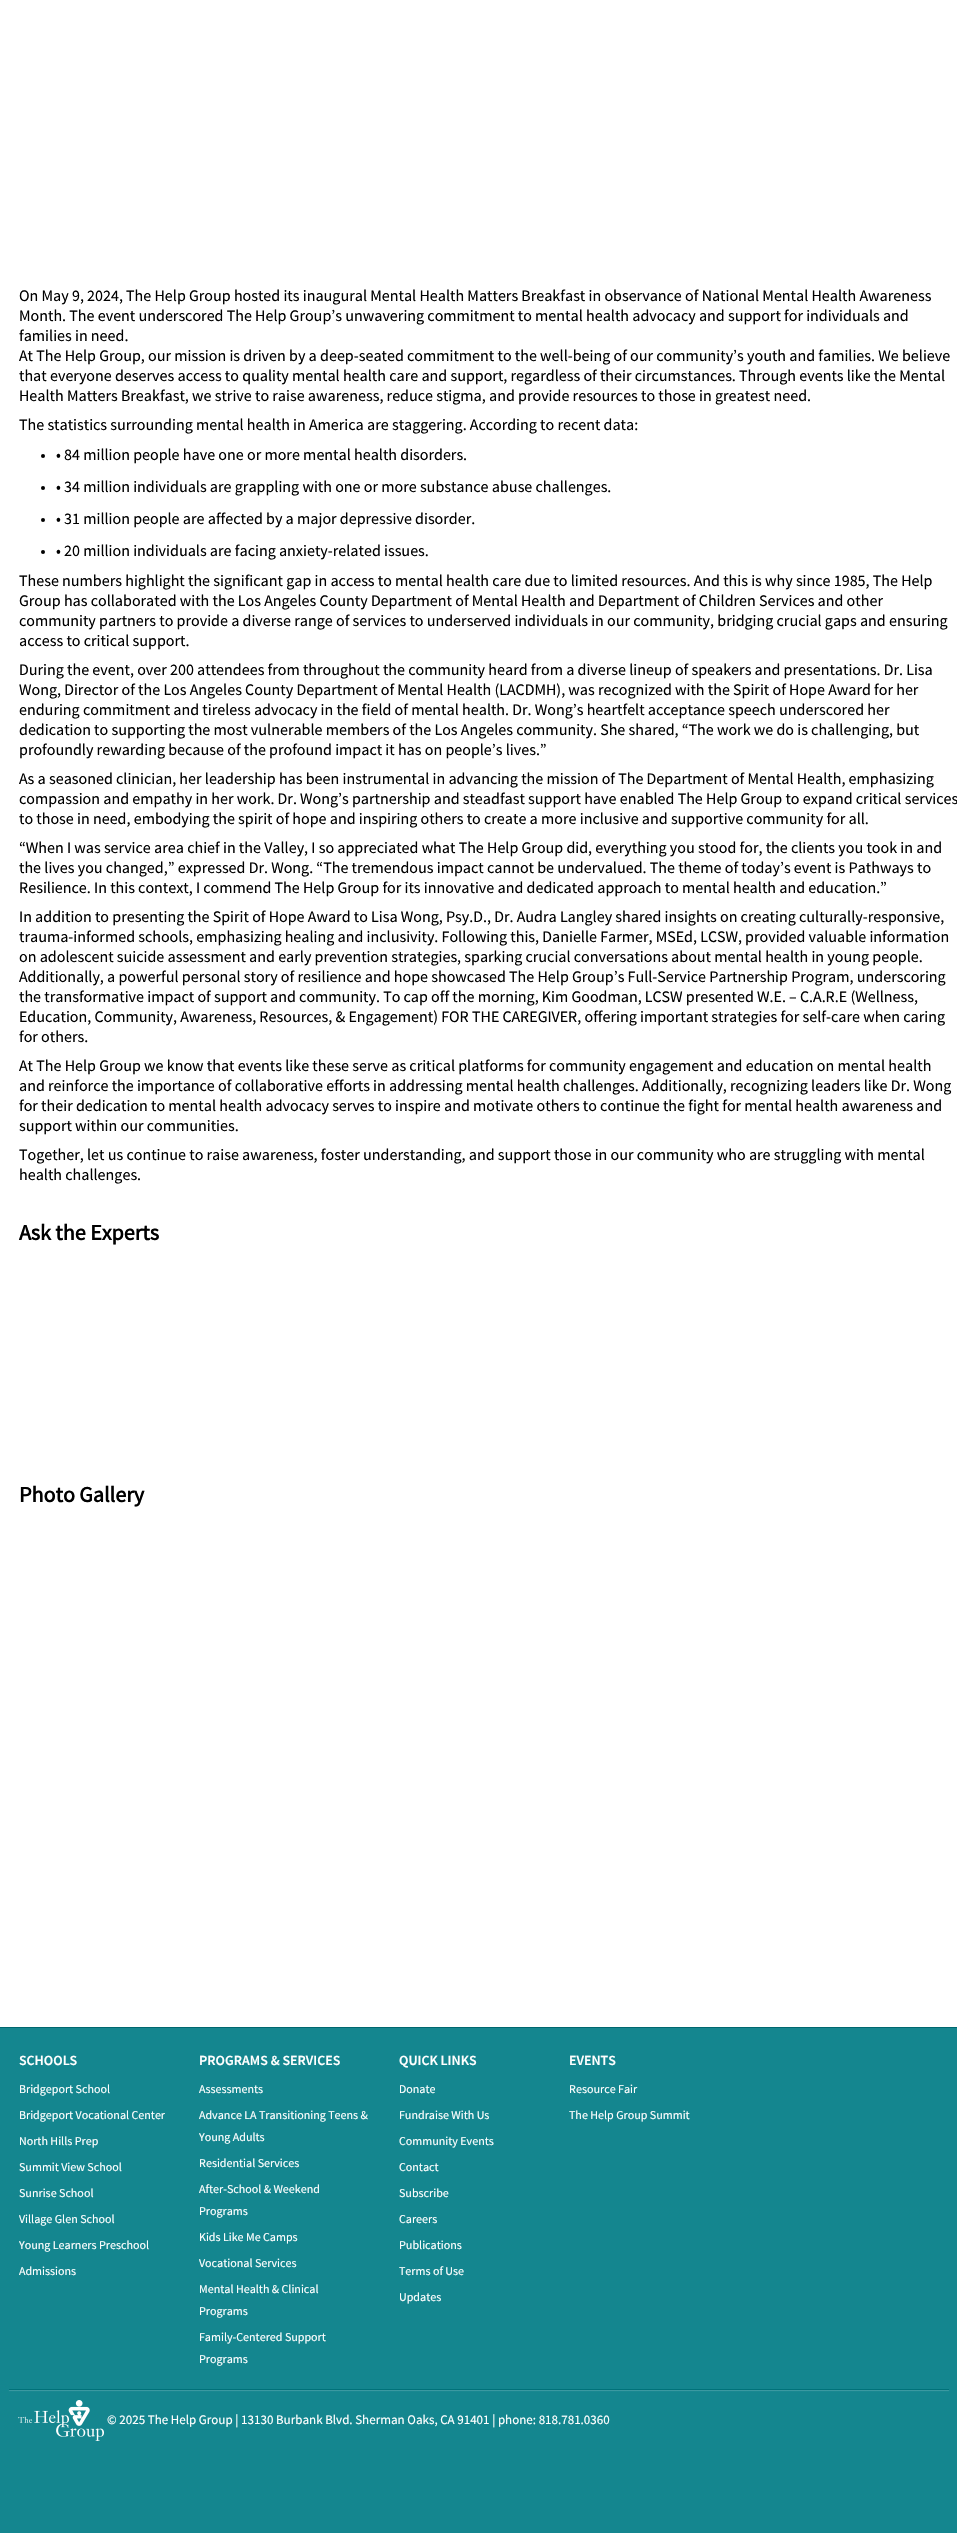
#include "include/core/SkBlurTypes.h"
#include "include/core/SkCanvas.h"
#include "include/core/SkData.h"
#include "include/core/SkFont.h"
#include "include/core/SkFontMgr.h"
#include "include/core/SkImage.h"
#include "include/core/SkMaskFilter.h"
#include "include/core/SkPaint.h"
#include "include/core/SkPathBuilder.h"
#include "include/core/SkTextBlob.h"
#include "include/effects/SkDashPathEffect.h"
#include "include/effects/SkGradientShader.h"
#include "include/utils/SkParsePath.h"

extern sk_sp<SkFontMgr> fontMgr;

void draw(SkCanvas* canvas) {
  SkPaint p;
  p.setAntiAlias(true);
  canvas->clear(SK_ColorWHITE);
  p.setColor(SK_ColorBLACK);
  canvas->drawCircle(43, 456, 2, p);
  canvas->drawCircle(43, 488, 2, p);
  canvas->drawCircle(43, 520, 2, p);
  canvas->drawCircle(43, 552, 2, p);
  p.setColor(SkColorSetRGB(20, 134, 143));
  canvas->drawRect(SkRect::MakeLTRB(0, 2028, 957, 2533), p);
  p.setColor(SkColorSetRGB(0, 103, 111));
  canvas->drawRect(SkRect::MakeLTRB(0, 2027, 957, 2028), p);
  p.setColor(SkColorSetARGB(51, 255, 255, 255));
  p.setMaskFilter(SkMaskFilter::MakeBlur(kNormal_SkBlurStyle, 0.5f));
  canvas->drawRect(SkRect::MakeLTRB(9, 2390, 949, 2391), p);
  p.setMaskFilter(nullptr);
  p.setColor(SkColorSetRGB(0, 114, 121));
  canvas->drawRect(SkRect::MakeLTRB(9, 2389, 949, 2390), p);
  canvas->drawImageRect(SkImages::DeferredFromEncodedData(SkData::MakeFromFileName("images/1.png")), SkRect::MakeLTRB(18, 2400, 104, 2441), SkSamplingOptions());
  SkFont font1(fontMgr->matchFamilyStyle("Source Sans Pro", SkFontStyle::Normal()), 16);
  font1.setSubpixel(true);
  p.setColor(SK_ColorBLACK);
  canvas->drawString("On May 9, 2024, The Help Group hosted its inaugural Mental Health Matters Breakfast in observance of National Mental Health Awareness", 19, 301, font1, p);
  canvas->drawString("Month. The event underscored The Help Group’s unwavering commitment to mental health advocacy and support for individuals and", 19, 321, font1, p);
  canvas->drawString("families in need.", 19, 341, font1, p);
  canvas->drawString("At The Help Group, our mission is driven by a deep-seated commitment to the well-being of our community’s youth and families. We believe", 19, 361, font1, p);
  canvas->drawString("that everyone deserves access to quality mental health care and support, regardless of their circumstances. Through events like the Mental", 19, 381, font1, p);
  canvas->drawString("Health Matters Breakfast, we strive to raise awareness, reduce stigma, and provide resources to those in greatest need.", 19, 401, font1, p);
  canvas->drawString("The statistics surrounding mental health in America are staggering. According to recent data:", 19, 430, font1, p);
  canvas->drawString("• 84 million people have one or more mental health disorders.", 56, 460, font1, p);
  canvas->drawString("• 34 million individuals are grappling with one or more substance abuse challenges.", 56, 492, font1, p);
  canvas->drawString("• 31 million people are affected by a major depressive disorder.", 56, 524, font1, p);
  canvas->drawString("• 20 million individuals are facing anxiety-related issues.", 56, 556, font1, p);
  canvas->drawString("These numbers highlight the significant gap in access to mental health care due to limited resources. And this is why since 1985, The Help", 19, 586, font1, p);
  canvas->drawString("Group has collaborated with the Los Angeles County Department of Mental Health and Department of Children Services and other", 19, 606, font1, p);
  canvas->drawString("community partners to provide a diverse range of services to underserved individuals in our community, bridging crucial gaps and ensuring", 19, 626, font1, p);
  canvas->drawString("access to critical support.", 19, 646, font1, p);
  canvas->drawString("During the event, over 200 attendees from throughout the community heard from a diverse lineup of speakers and presentations. Dr. Lisa", 19, 675, font1, p);
  canvas->drawString("Wong, Director of the Los Angeles County Department of Mental Health (LACDMH), was recognized with the Spirit of Hope Award for her", 19, 695, font1, p);
  canvas->drawString("enduring commitment and tireless advocacy in the field of mental health. Dr. Wong’s heartfelt acceptance speech underscored her", 19, 715, font1, p);
  canvas->drawString("dedication to supporting the most vulnerable members of the Los Angeles community. She shared, “The work we do is challenging, but", 19, 735, font1, p);
  canvas->drawString("profoundly rewarding because of the profound impact it has on people’s lives.”", 19, 755, font1, p);
  canvas->drawString("As a seasoned clinician, her leadership has been instrumental in advancing the mission of The Department of Mental Health, emphasizing", 19, 784, font1, p);
  canvas->drawString("compassion and empathy in her work. Dr. Wong’s partnership and steadfast support have enabled The Help Group to expand critical services", 19, 804, font1, p);
  canvas->drawString("to those in need, embodying the spirit of hope and inspiring others to create a more inclusive and supportive community for all.", 19, 824, font1, p);
  canvas->drawString("“When I was service area chief in the Valley, I so appreciated what The Help Group did, everything you stood for, the clients you took in and", 19, 853, font1, p);
  canvas->drawString("the lives you changed,” expressed Dr. Wong. “The tremendous impact cannot be undervalued. The theme of today’s event is Pathways to", 19, 873, font1, p);
  canvas->drawString("Resilience. In this context, I commend The Help Group for its innovative and dedicated approach to mental health and education.”", 19, 893, font1, p);
  canvas->drawString("In addition to presenting the Spirit of Hope Award to Lisa Wong, Psy.D., Dr. Audra Langley shared insights on creating culturally-responsive,", 19, 922, font1, p);
  canvas->drawString("trauma-informed schools, emphasizing healing and inclusivity. Following this, Danielle Farmer, MSEd, LCSW, provided valuable information", 19, 942, font1, p);
  canvas->drawString("on adolescent suicide assessment and early prevention strategies, sparking crucial conversations about mental health in young people.", 19, 962, font1, p);
  canvas->drawString("Additionally, a powerful personal story of resilience and hope showcased The Help Group’s Full-Service Partnership Program, underscoring", 19, 982, font1, p);
  canvas->drawString("the transformative impact of support and community. To cap off the morning, Kim Goodman, LCSW presented W.E. – C.A.R.E (Wellness,", 19, 1002, font1, p);
  canvas->drawString("Education, Community, Awareness, Resources, & Engagement) FOR THE CAREGIVER, offering important strategies for self-care when caring", 19, 1022, font1, p);
  canvas->drawString("for others.", 19, 1042, font1, p);
  canvas->drawString("At The Help Group we know that events like these serve as critical platforms for community engagement and education on mental health", 19, 1071, font1, p);
  canvas->drawString("and reinforce the importance of collaborative efforts in addressing mental health challenges. Additionally, recognizing leaders like Dr. Wong", 19, 1091, font1, p);
  canvas->drawString("for their dedication to mental health advocacy serves to inspire and motivate others to continue the fight for mental health awareness and", 19, 1111, font1, p);
  canvas->drawString("support within our communities.", 19, 1131, font1, p);
  canvas->drawString("Together, let us continue to raise awareness, foster understanding, and support those in our community who are struggling with mental", 19, 1160, font1, p);
  canvas->drawString("health challenges.", 19, 1180, font1, p);
  SkFont font2(fontMgr->matchFamilyStyle("Source Sans Pro", SkFontStyle::Bold()), 22);
  font2.setSubpixel(true);
  canvas->drawString("Ask the Experts", 19, 1240, font2, p);
  canvas->drawString("Photo Gallery", 19, 1502, font2, p);
  SkFont font3(fontMgr->matchFamilyStyle("Source Sans Pro", SkFontStyle(600, SkFontStyle::kNormal_Width, SkFontStyle::kUpright_Slant)), 14);
  font3.setSubpixel(true);
  p.setColor(SK_ColorWHITE);
  canvas->drawString("SCHOOLS", 19, 2065, font3, p);
  SkFont font4(fontMgr->matchFamilyStyle("Source Sans Pro", SkFontStyle::Normal()), 12);
  font4.setSubpixel(true);
  canvas->drawString("Bridgeport School", 19, 2093, font4, p);
  canvas->drawString("Bridgeport Vocational Center", 19, 2119, font4, p);
  canvas->drawString("North Hills Prep", 19, 2145, font4, p);
  canvas->drawString("Summit View School", 19, 2171, font4, p);
  canvas->drawString("Sunrise School", 19, 2197, font4, p);
  canvas->drawString("Village Glen School", 19, 2223, font4, p);
  canvas->drawString("Young Learners Preschool", 19, 2249, font4, p);
  canvas->drawString("Admissions", 19, 2275, font4, p);
  canvas->drawString("PROGRAMS & SERVICES", 199, 2065, font3, p);
  canvas->drawString("Assessments", 199, 2093, font4, p);
  canvas->drawString("Advance LA Transitioning Teens &", 199, 2119, font4, p);
  canvas->drawString("Young Adults", 199, 2141, font4, p);
  canvas->drawString("Residential Services", 199, 2167, font4, p);
  canvas->drawString("After-School & Weekend", 199, 2193, font4, p);
  canvas->drawString("Programs", 199, 2215, font4, p);
  canvas->drawString("Kids Like Me Camps", 199, 2241, font4, p);
  canvas->drawString("Vocational Services", 199, 2267, font4, p);
  canvas->drawString("Mental Health & Clinical", 199, 2293, font4, p);
  canvas->drawString("Programs", 199, 2315, font4, p);
  canvas->drawString("Family-Centered Support", 199, 2341, font4, p);
  canvas->drawString("Programs", 199, 2363, font4, p);
  canvas->drawString("QUICK LINKS", 399, 2065, font3, p);
  canvas->drawString("Donate", 399, 2093, font4, p);
  canvas->drawString("Fundraise With Us", 399, 2119, font4, p);
  canvas->drawString("Community Events", 399, 2145, font4, p);
  canvas->drawString("Contact", 399, 2171, font4, p);
  canvas->drawString("Subscribe", 399, 2197, font4, p);
  canvas->drawString("Careers", 399, 2223, font4, p);
  canvas->drawString("Publications", 399, 2249, font4, p);
  canvas->drawString("Terms of Use", 399, 2275, font4, p);
  canvas->drawString("Updates", 399, 2301, font4, p);
  canvas->drawString("EVENTS", 569, 2065, font3, p);
  canvas->drawString("Resource Fair", 569, 2093, font4, p);
  canvas->drawString("The Help Group Summit", 569, 2119, font4, p);
  SkFont font5(fontMgr->matchFamilyStyle("Source Sans Pro", SkFontStyle::Normal()), 13);
  font5.setSubpixel(true);
  canvas->drawString("© 2025 The Help Group | 13130 Burbank Blvd. Sherman Oaks, CA 91401 | phone: 818.781.0360", 107, 2424, font5, p);
}
